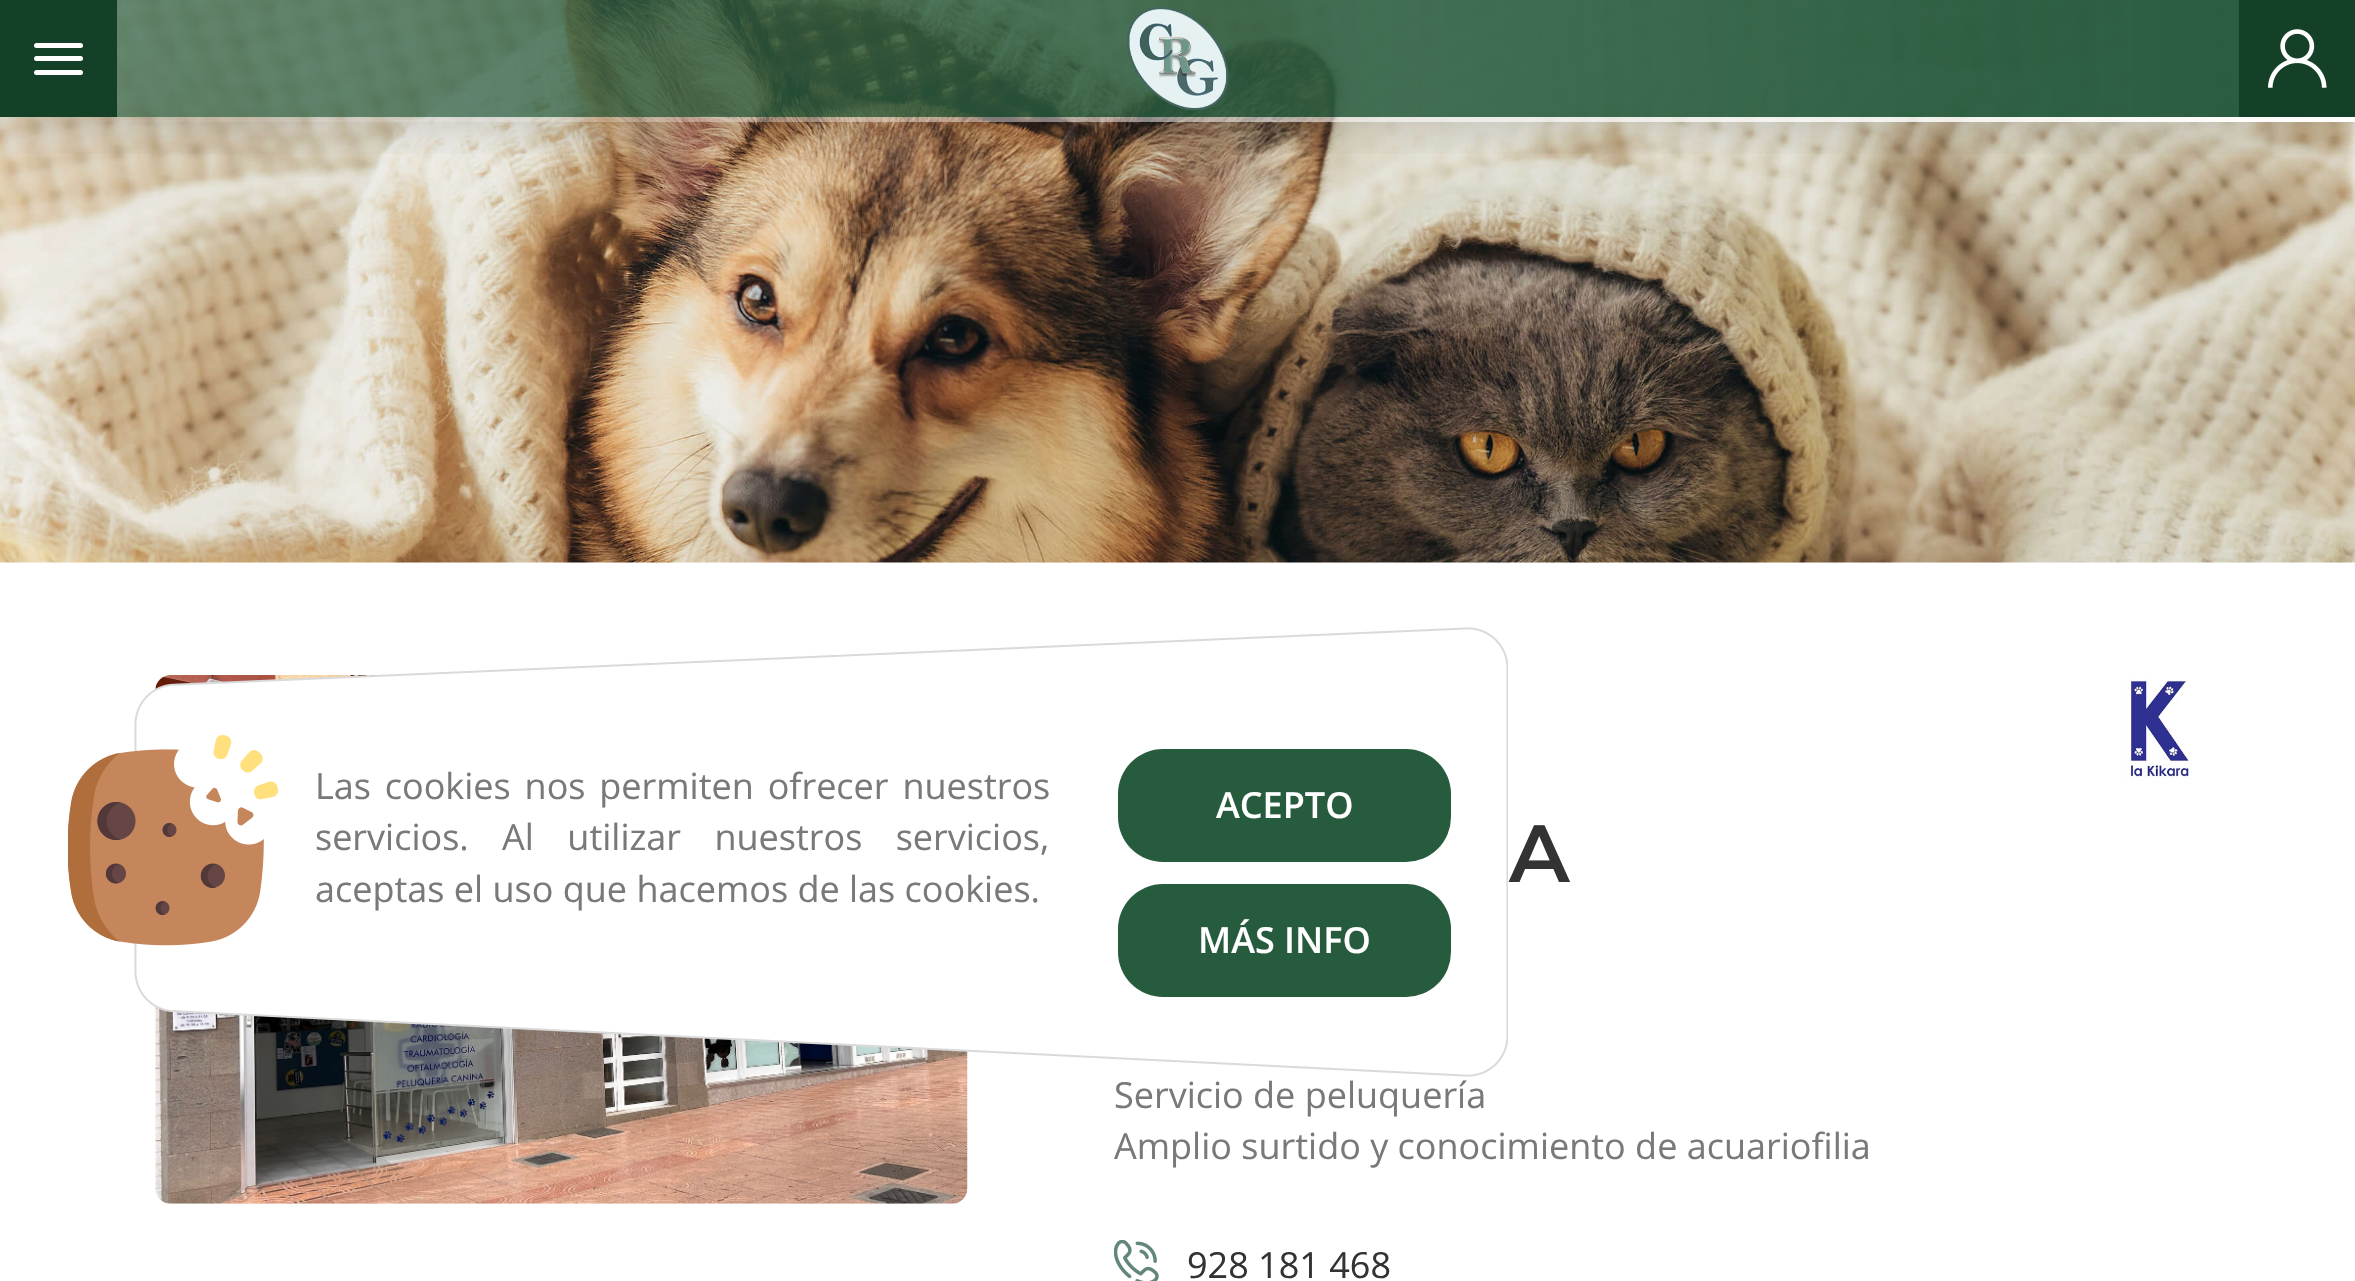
#include "include/core/SkBlurTypes.h"
#include "include/core/SkCanvas.h"
#include "include/core/SkData.h"
#include "include/core/SkFont.h"
#include "include/core/SkFontMgr.h"
#include "include/core/SkImage.h"
#include "include/core/SkMaskFilter.h"
#include "include/core/SkPaint.h"
#include "include/core/SkPathBuilder.h"
#include "include/core/SkTextBlob.h"
#include "include/effects/SkDashPathEffect.h"
#include "include/effects/SkGradientShader.h"
#include "include/utils/SkParsePath.h"

extern sk_sp<SkFontMgr> fontMgr;

void draw(SkCanvas* canvas) {
  SkPaint p;
  p.setAntiAlias(true);
  auto spacedText = [&](const char* s, float x, float y, const SkFont& font, const SkPaint& ink, float letter, float word) {
    std::vector<SkGlyphID> glyphs(font.countText(s, strlen(s), SkTextEncoding::kUTF8));
    std::vector<float> xs(glyphs.size());
    font.textToGlyphs(s, strlen(s), SkTextEncoding::kUTF8, glyphs);
    font.getXPos(glyphs, xs, x);
    float extra = 0;
    for (size_t i = 0; i < glyphs.size(); i++) {
      xs[i] += extra;
      extra += letter + word * (glyphs[i] == font.unicharToGlyph(' '));
    }
    canvas->drawTextBlob(SkTextBlob::MakeFromPosHGlyphs(glyphs, xs, y, font), 0, 0, ink);
  };
  canvas->clear(SK_ColorWHITE);
  canvas->drawImageRect(SkImages::DeferredFromEncodedData(SkData::MakeFromFileName("images/1.png")), SkRect::MakeLTRB(0, 0, 2355, 563), SkSamplingOptions());
  canvas->save();
  canvas->clipRect(SkRect::MakeLTRB(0, 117, 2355, 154));
  p.setColor(SkColorSetARGB(51, 0, 0, 0));
  p.setMaskFilter(SkMaskFilter::MakeBlur(kNormal_SkBlurStyle, 29));
  canvas->drawRect(SkRect::MakeLTRB(0, 0, 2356, 117), p);
  p.setMaskFilter(nullptr);
  canvas->restore();
  p.setColor(SkColorSetRGB(20, 64, 39));
  canvas->drawRect(SkRect::MakeLTRB(0, 0, 117, 117), p);
  p.setColor(SK_ColorWHITE);
  canvas->drawRoundRect(SkRect::MakeLTRB(34, 43, 83, 48), 2.5f, 2.5f, p);
  canvas->drawRoundRect(SkRect::MakeLTRB(34, 56, 83, 61), 2.5f, 2.5f, p);
  canvas->drawRoundRect(SkRect::MakeLTRB(34, 70, 83, 75), 2.5f, 2.5f, p);
  canvas->drawImageRect(SkImages::DeferredFromEncodedData(SkData::MakeFromFileName("images/2.png")), SkRect::MakeLTRB(1127, 7, 1229, 111), SkSamplingOptions());
  p.setColor(SkColorSetRGB(20, 64, 39));
  canvas->drawRect(SkRect::MakeLTRB(2239, 0, 2355, 117), p);
  canvas->drawImageRect(SkImages::DeferredFromEncodedData(SkData::MakeFromFileName("images/3.png")), SkRect::MakeLTRB(2268, 29, 2327, 88), SkSamplingOptions());
  {
    const SkColor colors[] = {SkColorSetARGB(0, 255, 255, 255), SK_ColorWHITE};
    const float stops[] = {0, 1};
    const SkPoint ends[] = {{0, 119}, {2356, 119}};
    p.setShader(SkGradientShader::MakeLinear(ends, colors, stops, 2, SkTileMode::kClamp));
    p.setAlpha(255);
  }
  canvas->drawRect(SkRect::MakeLTRB(60, 117, 2355, 122), p);
  canvas->drawImageRect(SkImages::DeferredFromEncodedData(SkData::MakeFromFileName("images/5.png")), SkRect::MakeLTRB(155, 675, 968, 1204), SkSamplingOptions());
  canvas->drawImageRect(SkImages::DeferredFromEncodedData(SkData::MakeFromFileName("images/4.png")), SkRect::MakeLTRB(68, 627, 1508, 1077), SkSamplingOptions());
  p.setShader(nullptr);
  p.setColor(SkColorSetRGB(39, 91, 61));
  canvas->drawRoundRect(SkRect::MakeLTRB(1118, 749, 1451, 862), 45, 45, p);
  canvas->drawRoundRect(SkRect::MakeLTRB(1118, 884, 1451, 997), 45, 45, p);
  canvas->drawImageRect(SkImages::DeferredFromEncodedData(SkData::MakeFromFileName("images/6.png")), SkRect::MakeLTRB(2124, 675, 2193, 784), SkSamplingOptions());
  canvas->drawImageRect(SkImages::DeferredFromEncodedData(SkData::MakeFromFileName("images/7.png")), SkRect::MakeLTRB(1114, 1240, 1159, 1281), SkSamplingOptions());
  SkFont font1(fontMgr->matchFamilyStyle("Open Sans", SkFontStyle::Normal()), 36);
  font1.setSubpixel(true);
  p.setColor(SkColorSetRGB(121, 121, 121));
  spacedText("Las cookies nos permiten ofrecer nuestros", 315, 799, font1, p, 0, 4.5f);
  spacedText("servicios. Al utilizar nuestros servicios,", 315, 850, font1, p, 0, 24);
  canvas->drawString("aceptas el uso que hacemos de las cookies.", 315, 902, font1, p);
  SkFont font2(fontMgr->matchFamilyStyle("Open Sans", SkFontStyle(600, SkFontStyle::kNormal_Width, SkFontStyle::kUpright_Slant)), 36);
  font2.setSubpixel(true);
  p.setColor(SK_ColorWHITE);
  canvas->drawString("ACEPTO", 1216, 818, font2, p);
  canvas->drawString("MÁS INFO", 1198, 953, font2, p);
  SkFont font3(fontMgr->matchFamilyStyle("Montserrat", SkFontStyle(600, SkFontStyle::kNormal_Width, SkFontStyle::kUpright_Slant)), 81);
  font3.setSubpixel(true);
  p.setColor(SkColorSetRGB(51, 51, 51));
  canvas->drawString("A", 1509, 882, font3, p);
  p.setColor(SkColorSetRGB(121, 121, 121));
  canvas->drawString("Servicio de peluquería", 1114, 1108, font1, p);
  canvas->drawString("Amplio surtido y conocimiento de acuariofilia", 1114, 1159, font1, p);
  p.setColor(SkColorSetRGB(51, 51, 51));
  canvas->drawString("928 181 468", 1187, 1278, font1, p);
}
